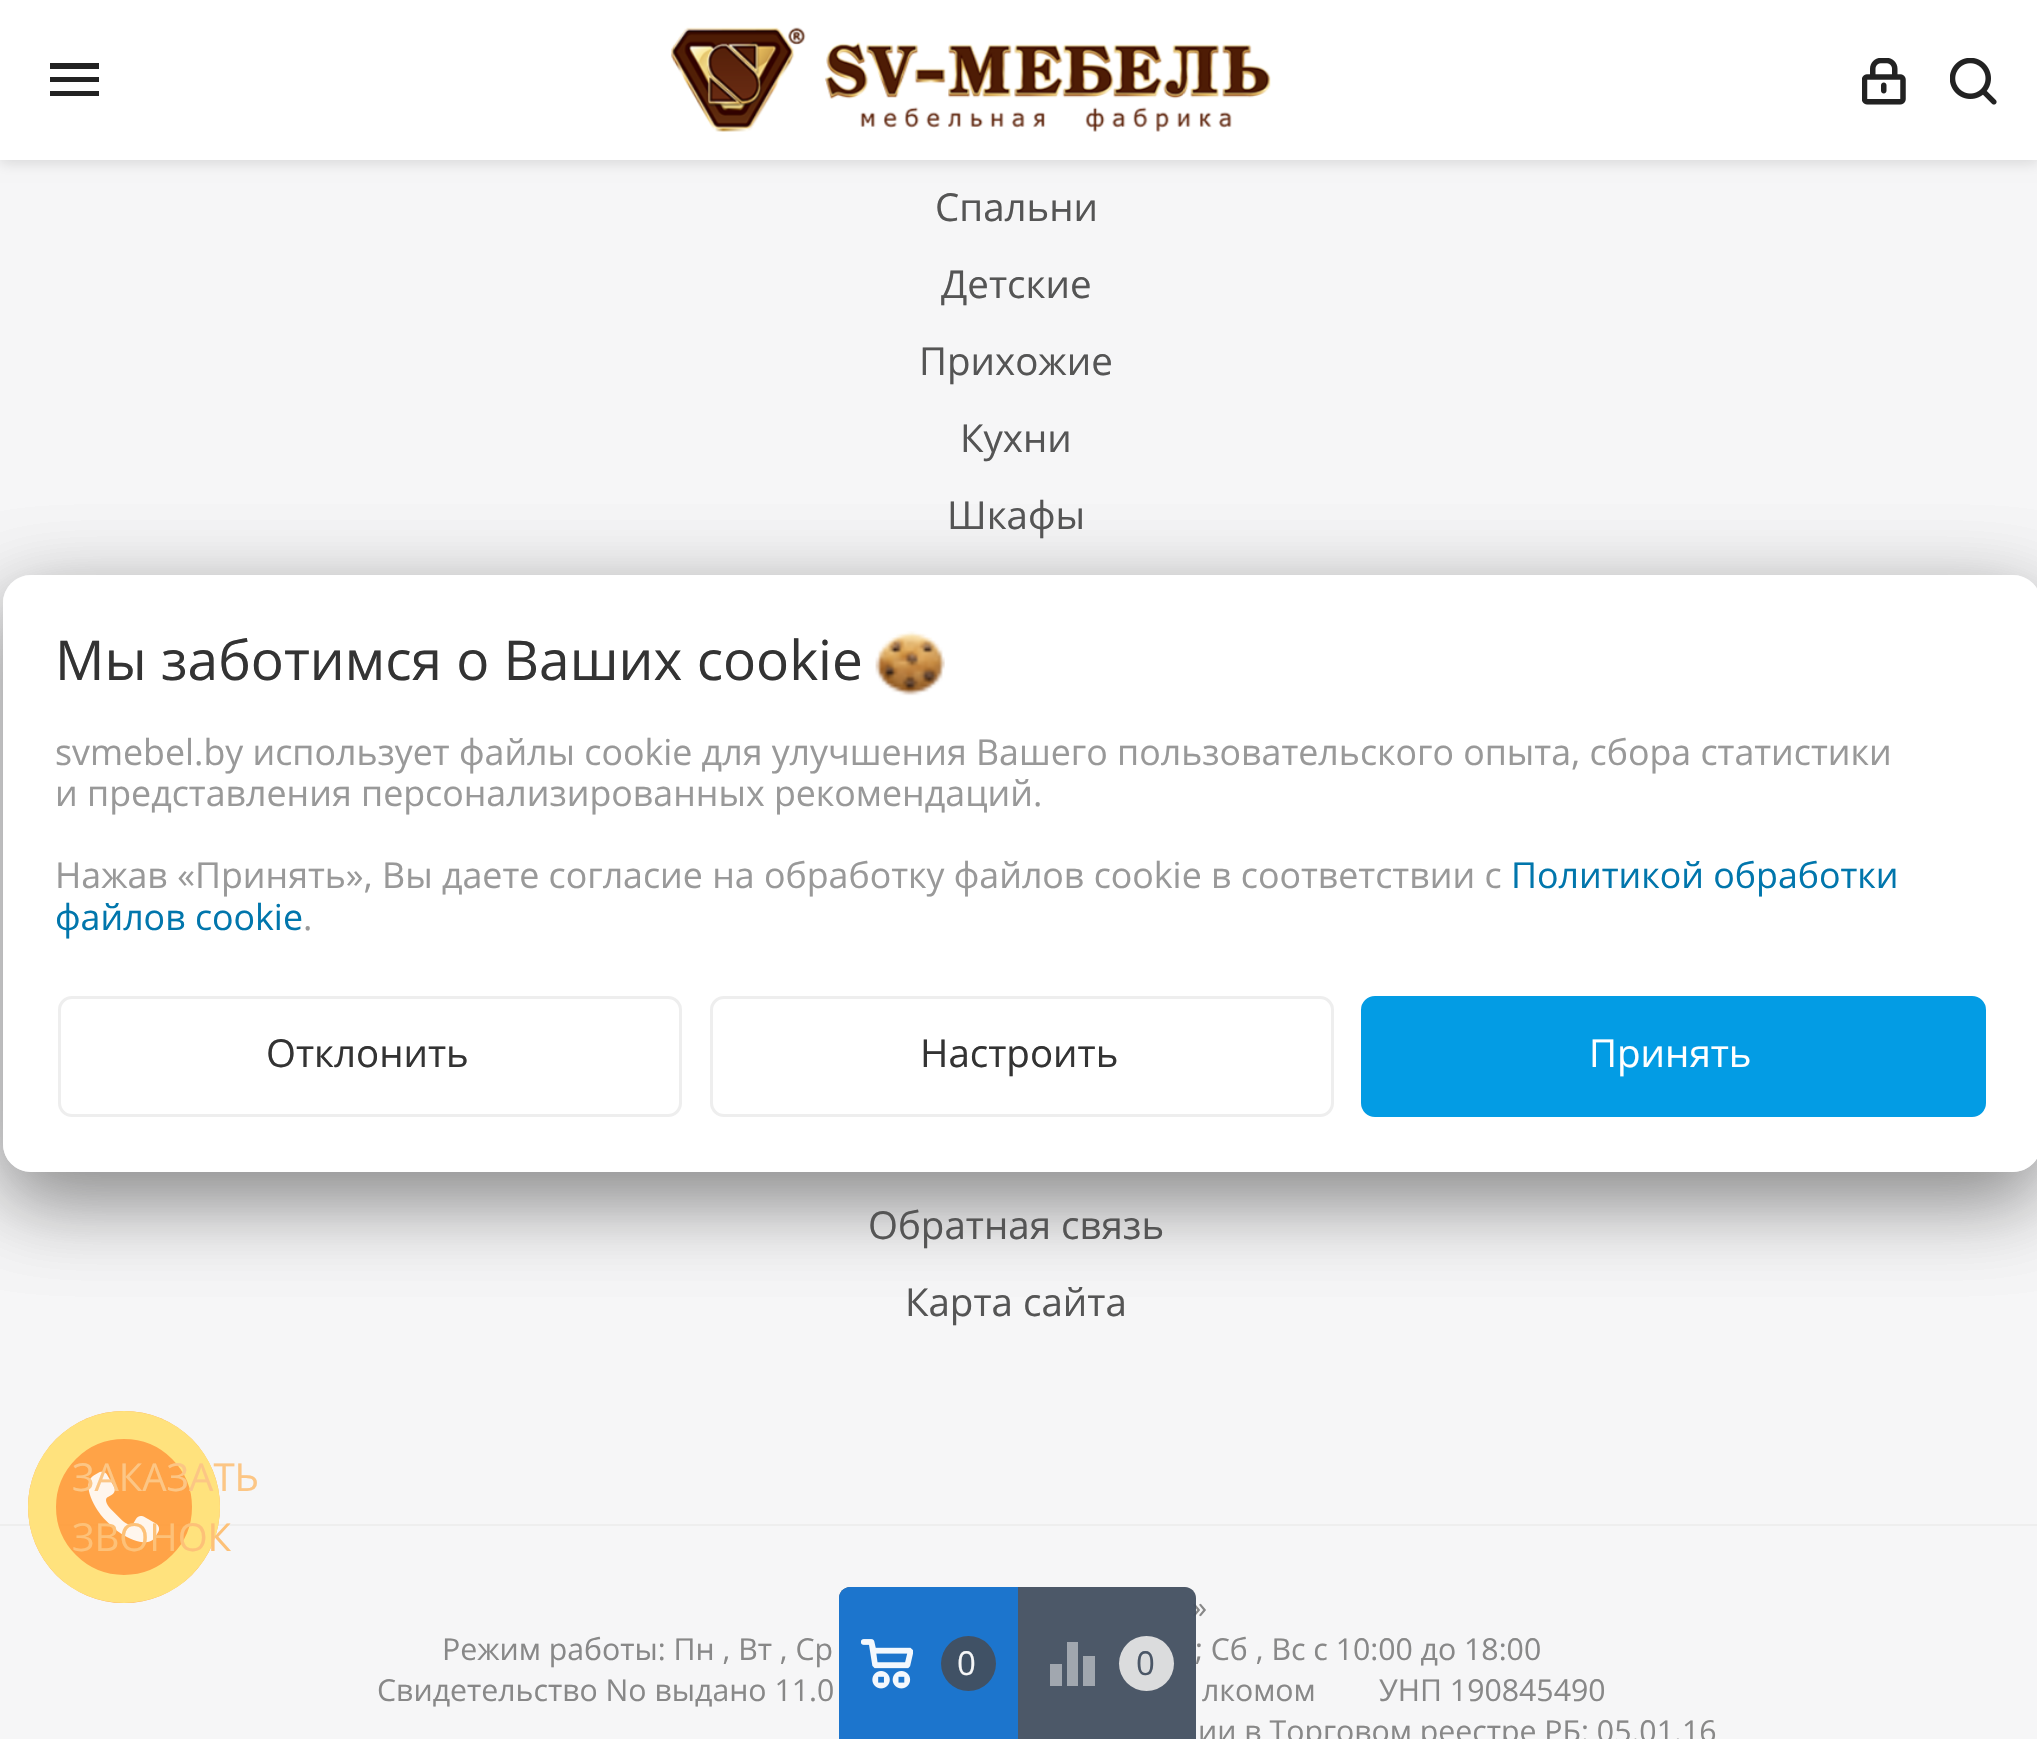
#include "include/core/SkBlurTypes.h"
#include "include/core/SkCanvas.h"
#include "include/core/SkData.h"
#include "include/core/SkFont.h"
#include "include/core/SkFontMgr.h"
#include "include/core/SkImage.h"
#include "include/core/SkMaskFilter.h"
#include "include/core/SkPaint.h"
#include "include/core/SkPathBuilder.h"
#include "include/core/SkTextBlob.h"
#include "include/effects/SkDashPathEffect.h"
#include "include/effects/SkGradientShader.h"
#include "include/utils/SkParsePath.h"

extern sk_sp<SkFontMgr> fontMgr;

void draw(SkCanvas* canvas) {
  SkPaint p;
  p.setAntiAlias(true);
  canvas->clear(SkColorSetRGB(246, 246, 247));
  p.setColor(SkColorSetRGB(238, 238, 238));
  canvas->drawRect(SkRect::MakeLTRB(0, 1524, 2037, 1526), p);
  p.setColor(SkColorSetARGB(36, 0, 0, 0));
  p.setMaskFilter(SkMaskFilter::MakeBlur(kNormal_SkBlurStyle, 7));
  canvas->drawRect(SkRect::MakeLTRB(0, 3, 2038, 162), p);
  p.setMaskFilter(nullptr);
  p.setColor(SK_ColorWHITE);
  canvas->drawRect(SkRect::MakeLTRB(0, 0, 2037, 160), p);
  p.setColor(SkColorSetRGB(34, 34, 34));
  canvas->drawPath(SkPathBuilder().moveTo(50, 63).lineTo(99, 63).lineTo(99, 69).lineTo(50, 69).close().moveTo(50, 82).lineTo(50, 77).lineTo(99, 77).lineTo(99, 82).close().moveTo(50, 96).lineTo(50, 91).lineTo(99, 91).lineTo(99, 96).close().detach(), p);
  canvas->drawImageRect(SkImages::DeferredFromEncodedData(SkData::MakeFromFileName("images/1.png")), SkRect::MakeLTRB(671, 27, 1271, 132), SkSamplingOptions());
  canvas->drawImageRect(SkImages::DeferredFromEncodedData(SkData::MakeFromFileName("images/2.png")), SkRect::MakeLTRB(1862, 58, 1906, 105), SkSamplingOptions());
  canvas->drawImageRect(SkImages::DeferredFromEncodedData(SkData::MakeFromFileName("images/3.png")), SkRect::MakeLTRB(1950, 58, 1997, 105), SkSamplingOptions());
  canvas->save();
  canvas->clipPath(SkPathBuilder(SkPathFillType::kEvenOdd).moveTo(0, 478).lineTo(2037, 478).lineTo(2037, 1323).lineTo(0, 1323).close().moveTo(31, 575).lineTo(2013, 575).cubicTo(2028.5f, 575, 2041, 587.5f, 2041, 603).lineTo(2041, 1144).cubicTo(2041, 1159.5f, 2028.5f, 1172, 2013, 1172).lineTo(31, 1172).cubicTo(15.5f, 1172, 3, 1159.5f, 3, 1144).lineTo(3, 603).cubicTo(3, 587.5f, 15.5f, 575, 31, 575).close().detach(), true);
  p.setColor(SkColorSetARGB(66, 0, 0, 0));
  p.setMaskFilter(SkMaskFilter::MakeBlur(kNormal_SkBlurStyle, 41));
  canvas->drawRoundRect(SkRect::MakeLTRB(3, 602, 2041, 1199), 28, 28, p);
  p.setMaskFilter(nullptr);
  p.setMaskFilter(SkMaskFilter::MakeBlur(kNormal_SkBlurStyle, 41));
  canvas->drawRoundRect(SkRect::MakeLTRB(3, 602, 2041, 1199), 28, 28, p);
  p.setMaskFilter(nullptr);
  canvas->restore();
  p.setColor(SK_ColorWHITE);
  canvas->drawRoundRect(SkRect::MakeLTRB(3, 575, 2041, 1172), 28, 28, p);
  canvas->drawImageRect(SkImages::DeferredFromEncodedData(SkData::MakeFromFileName("images/5.png")), SkRect::MakeLTRB(875, 631, 945, 696), SkSamplingOptions());
  p.setStyle(SkPaint::kStroke_Style);
  p.setStrokeWidth(3);
  p.setColor(SkColorSetRGB(238, 238, 238));
  canvas->drawRoundRect(SkRect::MakeLTRB(59.5f, 997.5f, 680.5f, 1115.5f), 12.5f, 12.5f, p);
  canvas->drawRoundRect(SkRect::MakeLTRB(711.5f, 997.5f, 1332.5f, 1115.5f), 12.5f, 12.5f, p);
  p.setStyle(SkPaint::kFill_Style);
  p.setColor(SkColorSetRGB(3, 156, 228));
  canvas->drawRoundRect(SkRect::MakeLTRB(1362.5f, 997.5f, 1984.5f, 1115.5f), 12.5f, 12.5f, p);
  p.setStyle(SkPaint::kStroke_Style);
  canvas->drawRoundRect(SkRect::MakeLTRB(1362.5f, 997.5f, 1984.5f, 1115.5f), 12.5f, 12.5f, p);
  p.setStyle(SkPaint::kFill_Style);
  p.setColor(SkColorSetARGB(230, 255, 153, 51));
  canvas->drawCircle(124, 1507, 96, p);
  canvas->drawImageRect(SkImages::DeferredFromEncodedData(SkData::MakeFromFileName("images/6.png")), SkRect::MakeLTRB(88, 1471, 159, 1543), SkSamplingOptions());
  p.setStyle(SkPaint::kStroke_Style);
  p.setStrokeWidth(28);
  p.setColor(SkColorSetARGB(230, 255, 233, 131));
  canvas->drawCircle(124, 1507, 82, p);
  SkFont font1(fontMgr->matchFamilyStyle("Open Sans", SkFontStyle::Normal()), 38.5f);
  font1.setSubpixel(true);
  p.setStyle(SkPaint::kFill_Style);
  p.setColor(SkColorSetRGB(85, 85, 85));
  canvas->drawString("Спальни", 935, 221, font1, p);
  canvas->drawString("Детские", 941, 298, font1, p);
  canvas->drawString("Прихожие", 919, 375, font1, p);
  canvas->drawString("Кухни", 960, 452, font1, p);
  canvas->drawString("Шкафы", 947, 529, font1, p);
  canvas->drawString("Обратная связь", 868, 1239, font1, p);
  canvas->drawString("Карта сайта", 905, 1316, font1, p);
  SkFont font2(fontMgr->matchFamilyStyle("Open Sans", SkFontStyle::Normal()), 30.25f);
  font2.setSubpixel(true);
  p.setColor(SkColorSetRGB(136, 136, 136));
  canvas->drawString("»", 1192, 1618, font2, p);
  canvas->drawString("Режим работы: Пн , Вт , Ср", 442, 1660, font2, p);
  canvas->drawString("; Сб , Вс c 10:00 до 18:00", 1195, 1660, font2, p);
  canvas->drawString("Свидетельство No выдано 11.0", 377, 1701, font2, p);
  canvas->drawString("лкомом", 1202, 1701, font2, p);
  canvas->drawString("УНП 190845490", 1379, 1701, font2, p);
  canvas->drawString("ии в Торговом реестре РБ: 05.01.16", 1198, 1742, font2, p);
  p.setColor(SkColorSetARGB(242, 66, 79, 96));
  canvas->drawPath(SkPathBuilder().moveTo(850, 1587).lineTo(1185, 1587).cubicTo(1191, 1587, 1196, 1592, 1196, 1598).lineTo(1196, 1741).lineTo(839, 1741).lineTo(839, 1598).cubicTo(839, 1592, 844, 1587, 850, 1587).close().detach(), p);
  p.setColor(SkColorSetARGB(242, 25, 118, 210));
  canvas->drawPath(SkPathBuilder().moveTo(850, 1587).lineTo(1018, 1587).lineTo(1018, 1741).lineTo(839, 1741).lineTo(839, 1598).cubicTo(839, 1592, 844, 1587, 850, 1587).close().detach(), p);
  canvas->drawImageRect(SkImages::DeferredFromEncodedData(SkData::MakeFromFileName("images/4.png")), SkRect::MakeLTRB(861, 1639, 913, 1689), SkSamplingOptions());
  p.setColor(SkColorSetRGB(64, 81, 101));
  canvas->drawCircle(968.5f, 1663.5f, 27.5f, p);
  SkFont font3(fontMgr->matchFamilyStyle("Open Sans", SkFontStyle::Normal()), 33);
  font3.setSubpixel(true);
  p.setColor(SkColorSetRGB(245, 246, 247));
  canvas->drawString("0", 957, 1675, font3, p);
  p.setColor(SkColorSetARGB(120, 255, 255, 255));
  canvas->drawPath(SkPathBuilder().moveTo(1083, 1656).lineTo(1095, 1656).lineTo(1095, 1686).lineTo(1083, 1686).close().moveTo(1050, 1686).lineTo(1050, 1664).lineTo(1062, 1664).lineTo(1062, 1686).close().moveTo(1067, 1686).lineTo(1067, 1642).lineTo(1078, 1642).lineTo(1078, 1686).close().detach(), p);
  p.setColor(SkColorSetARGB(242, 227, 227, 227));
  canvas->drawCircle(1146.5f, 1663.5f, 27.5f, p);
  p.setColor(SkColorSetRGB(74, 86, 102));
  canvas->drawString("0", 1136, 1675, font3, p);
  SkFont font4(fontMgr->matchFamilyStyle("Open Sans", SkFontStyle::Normal()), 55);
  font4.setSubpixel(true);
  p.setColor(SkColorSetRGB(51, 51, 51));
  canvas->drawString("Мы заботимся о Ваших cookie", 55, 680, font4, p);
  SkFont font5(fontMgr->matchFamilyStyle("Open Sans", SkFontStyle::Normal()), 35.75f);
  font5.setSubpixel(true);
  p.setColor(SkColorSetRGB(153, 153, 153));
  canvas->drawString("svmebel.by использует файлы cookie для улучшения Вашего пользовательского опыта, сбора статистики", 55, 765, font5, p);
  canvas->drawString("и представления персонализированных рекомендаций.", 55, 806, font5, p);
  canvas->drawString("Нажав «Принять», Вы даете согласие на обработку файлов cookie в соответствии с", 55, 888, font5, p);
  p.setColor(SkColorSetRGB(1, 118, 172));
  canvas->drawString("Политикой обработки", 1511, 888, font5, p);
  canvas->drawString("файлов cookie", 55, 930, font5, p);
  p.setColor(SkColorSetRGB(153, 153, 153));
  canvas->drawString(".", 303, 930, font5, p);
  p.setColor(SkColorSetRGB(51, 51, 51));
  canvas->drawString("Отклонить", 266, 1067, font1, p);
  canvas->drawString("Настроить", 920, 1067, font1, p);
  p.setColor(SK_ColorWHITE);
  canvas->drawString("Принять", 1589, 1067, font1, p);
  p.setColor(SkColorSetRGB(252, 198, 133));
  canvas->drawString("ЗАКАЗАТЬ", 72, 1491, font1, p);
  p.setColor(SkColorSetRGB(253, 193, 120));
  canvas->drawString("ЗВОНОК", 72, 1551, font1, p);
}
